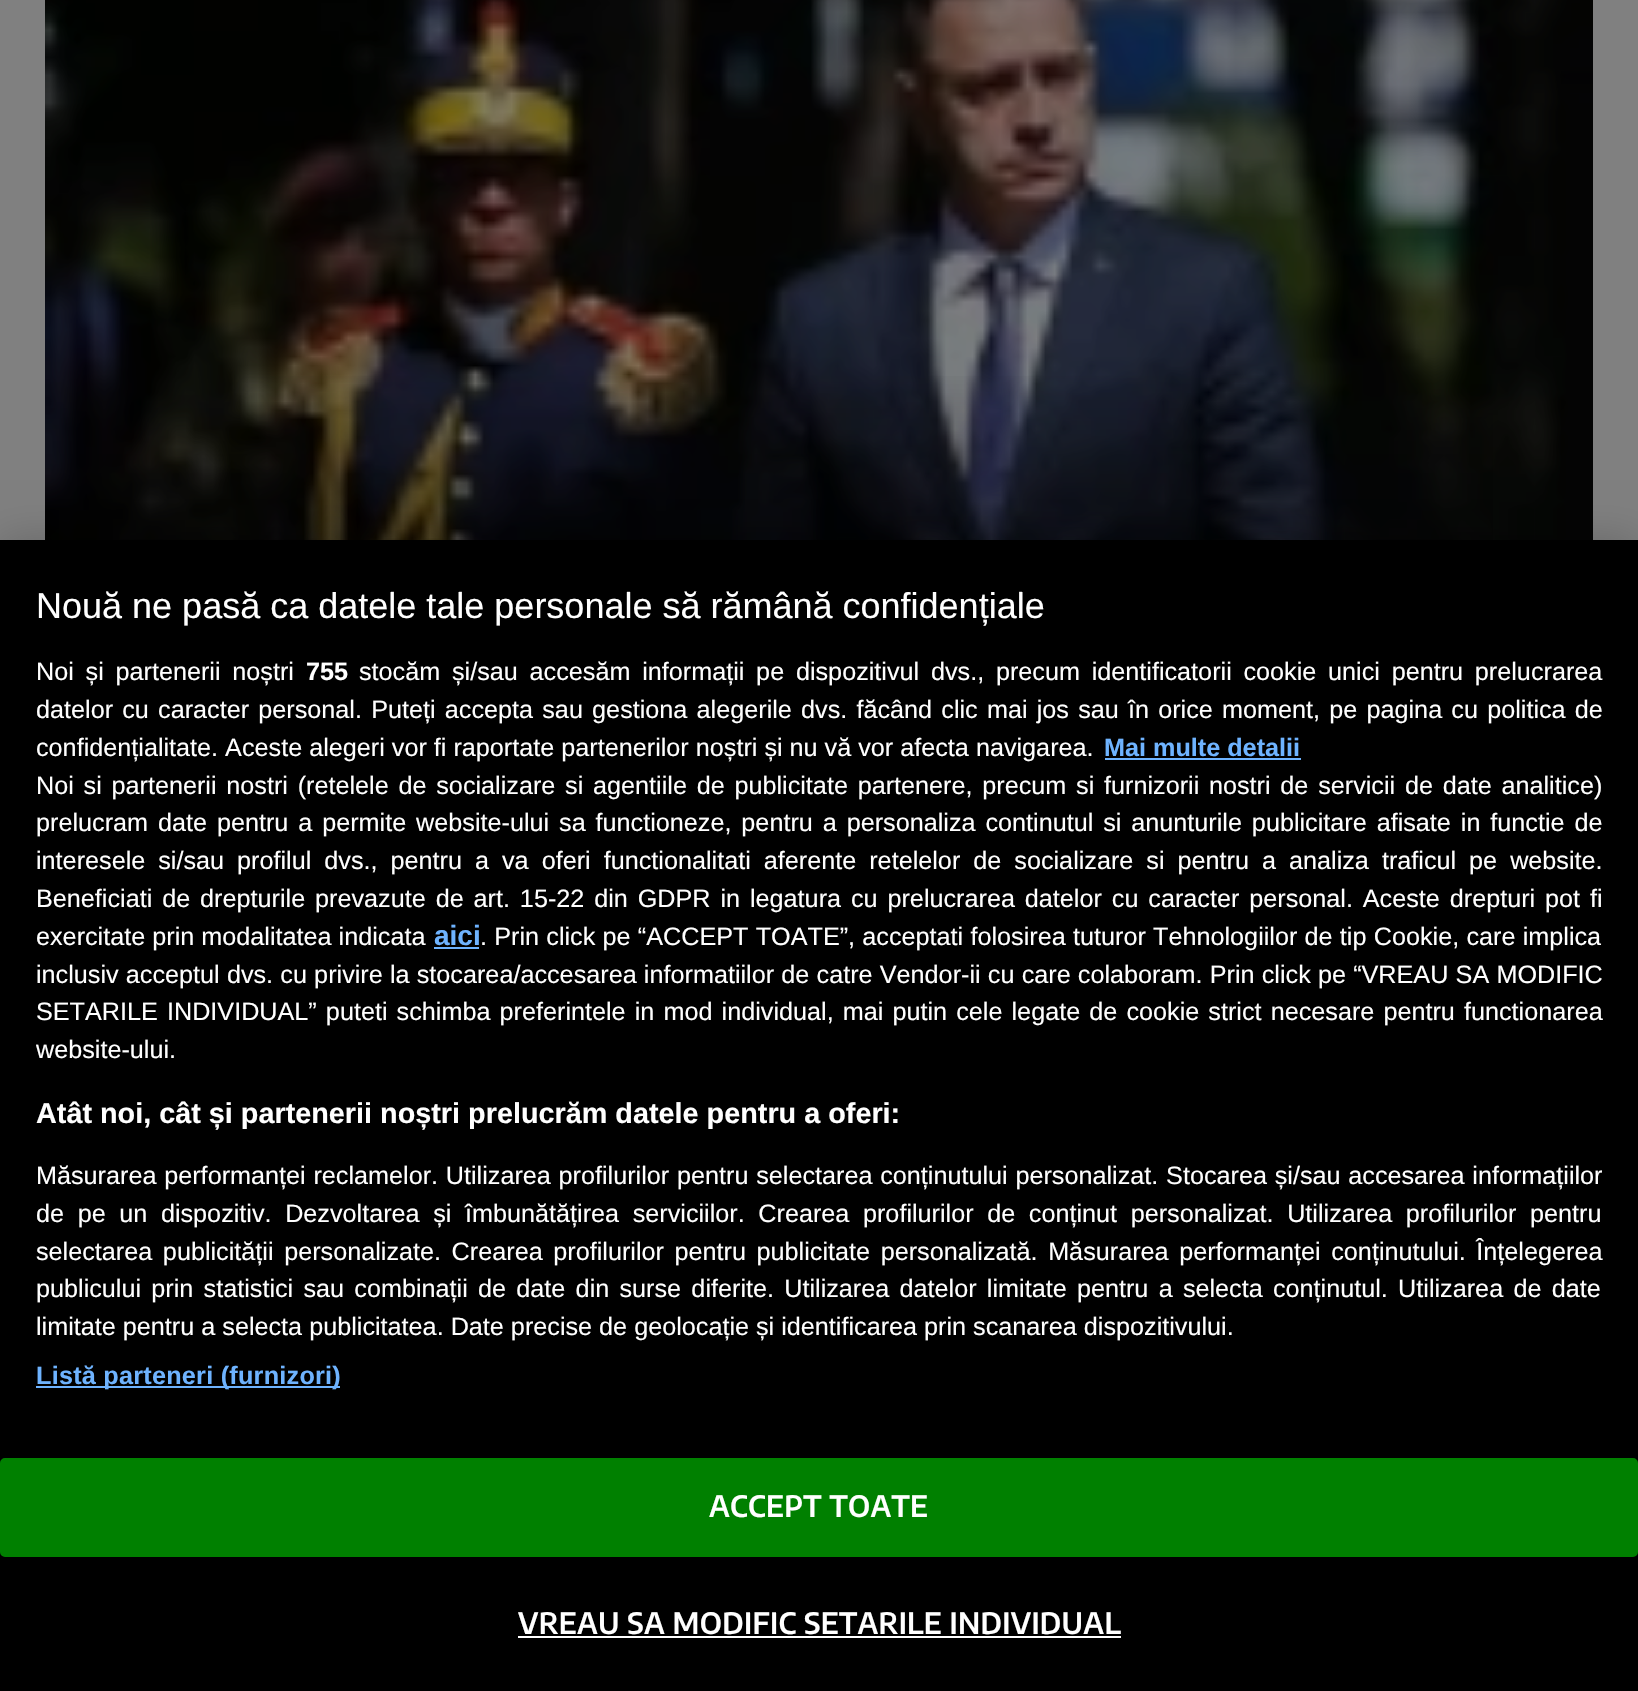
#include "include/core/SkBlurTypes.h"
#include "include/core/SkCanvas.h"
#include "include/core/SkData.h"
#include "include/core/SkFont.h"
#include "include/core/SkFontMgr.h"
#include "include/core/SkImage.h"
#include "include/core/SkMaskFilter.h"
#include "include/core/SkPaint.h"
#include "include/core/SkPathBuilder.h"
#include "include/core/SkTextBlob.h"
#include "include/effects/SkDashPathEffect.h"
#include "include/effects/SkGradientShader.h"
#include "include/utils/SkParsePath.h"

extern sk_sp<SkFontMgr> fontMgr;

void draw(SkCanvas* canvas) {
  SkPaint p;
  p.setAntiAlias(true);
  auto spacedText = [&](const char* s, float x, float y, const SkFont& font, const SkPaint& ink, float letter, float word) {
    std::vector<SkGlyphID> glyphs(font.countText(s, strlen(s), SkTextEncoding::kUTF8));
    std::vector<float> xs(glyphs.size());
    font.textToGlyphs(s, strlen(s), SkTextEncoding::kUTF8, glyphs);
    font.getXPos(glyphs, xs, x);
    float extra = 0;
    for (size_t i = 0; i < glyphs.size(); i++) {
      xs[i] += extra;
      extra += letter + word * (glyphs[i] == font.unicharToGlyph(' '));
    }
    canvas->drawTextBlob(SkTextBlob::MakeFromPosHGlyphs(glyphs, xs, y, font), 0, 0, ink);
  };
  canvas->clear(SkColorSetRGB(128, 128, 128));
  canvas->drawImageRect(SkImages::DeferredFromEncodedData(SkData::MakeFromFileName("images/1.png")), SkRect::MakeLTRB(45, 0, 1593, 540), SkSamplingOptions());
  {
    const SkColor colors[] = {SkColorSetARGB(0, 0, 0, 0), SK_ColorBLACK};
    const float stops[] = {0, 1};
    const SkPoint ends[] = {{819, 364}, {819, 914}};
    p.setShader(SkGradientShader::MakeLinear(ends, colors, stops, 2, SkTileMode::kClamp));
    p.setAlpha(255);
  }
  canvas->drawRect(SkRect::MakeLTRB(45, 376, 1493, 540), p);
  p.setShader(nullptr);
  p.setColor(SkColorSetARGB(51, 0, 0, 0));
  p.setMaskFilter(SkMaskFilter::MakeBlur(kNormal_SkBlurStyle, 20));
  canvas->drawRect(SkRect::MakeLTRB(0, 540, 1638, 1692), p);
  p.setMaskFilter(nullptr);
  p.setColor(SK_ColorBLACK);
  canvas->drawRect(SkRect::MakeLTRB(0, 540, 1638, 1691), p);
  p.setColor(SkColorSetRGB(110, 179, 255));
  canvas->drawRect(SkRect::MakeLTRB(1105, 758, 1301, 760), p);
  canvas->drawRect(SkRect::MakeLTRB(434, 947, 479, 949), p);
  canvas->drawRect(SkRect::MakeLTRB(36, 1386, 340, 1388), p);
  p.setColor(SkColorSetRGB(0, 128, 0));
  canvas->drawRoundRect(SkRect::MakeLTRB(1, 1459, 1637, 1556), 4, 4, p);
  p.setStyle(SkPaint::kStroke_Style);
  p.setStrokeWidth(2);
  canvas->drawRoundRect(SkRect::MakeLTRB(1, 1459, 1637, 1556), 4, 4, p);
  p.setStyle(SkPaint::kFill_Style);
  p.setColor(SK_ColorWHITE);
  canvas->drawRect(SkRect::MakeLTRB(518, 1636, 1121, 1638), p);
  SkFont font1(fontMgr->matchFamilyStyle("Liberation Sans", SkFontStyle::Normal()), 36);
  font1.setSubpixel(true);
  canvas->drawString("Nouă ne pasă ca datele tale personale să rămână confidențiale", 36, 618, font1, p);
  SkFont font2(fontMgr->matchFamilyStyle("Liberation Sans", SkFontStyle::Normal()), 25.2f);
  font2.setSubpixel(true);
  spacedText("Noi și partenerii noștri", 36, 680, font2, p, 0, 4.75f);
  SkFont font3(fontMgr->matchFamilyStyle("Liberation Sans", SkFontStyle::Bold()), 25.2f);
  font3.setSubpixel(true);
  canvas->drawString("755", 306, 680, font3, p);
  spacedText("stocăm și/sau accesăm informații pe dispozitivul dvs., precum identificatorii cookie unici pentru prelucrarea", 359, 680, font2, p, 0, 4.75f);
  spacedText("datelor cu caracter personal. Puteți accepta sau gestiona alegerile dvs. făcând clic mai jos sau în orice moment, pe pagina cu politica de", 36, 718, font2, p, 0, 2.2f);
  canvas->drawString("confidențialitate. Aceste alegeri vor fi raportate partenerilor noștri și nu vă vor afecta navigarea.", 36, 756, font2, p);
  p.setColor(SkColorSetRGB(110, 179, 255));
  canvas->drawString("Mai multe detalii", 1104, 756, font3, p);
  p.setColor(SK_ColorWHITE);
  spacedText("Noi si partenerii nostri (retelele de socializare si agentiile de publicitate partenere, precum si furnizorii nostri de servicii de date analitice)", 36, 794, font2, p, 0, 2.75f);
  spacedText("prelucram date pentru a permite website-ului sa functioneze, pentru a personaliza continutul si anunturile publicitare afisate in functie de", 36, 831, font2, p, 0, 2.9f);
  spacedText("interesele si/sau profilul dvs., pentru a va oferi functionalitati aferente retelelor de socializare si pentru a analiza traficul pe website.", 36, 869, font2, p, 0, 6);
  spacedText("Beneficiati de drepturile prevazute de art. 15-22 din GDPR in legatura cu prelucrarea datelor cu caracter personal. Aceste drepturi pot fi", 36, 907, font2, p, 0, 2.9f);
  canvas->drawString("exercitate prin modalitatea indicata", 36, 945, font2, p);
  SkFont font4(fontMgr->matchFamilyStyle("Liberation Sans", SkFontStyle::Bold()), 28);
  font4.setSubpixel(true);
  p.setColor(SkColorSetRGB(110, 179, 255));
  canvas->drawString("aici", 434, 945, font4, p);
  p.setColor(SK_ColorWHITE);
  spacedText(". Prin click pe “ACCEPT TOATE”, acceptati folosirea tuturor Tehnologiilor de tip Cookie, care implica", 480, 945, font2, p, 0, 0.25f);
  spacedText("inclusiv acceptul dvs. cu privire la stocarea/accesarea informatiilor de catre Vendor-ii cu care colaboram. Prin click pe “VREAU SA MODIFIC", 36, 983, font2, p, 0, 0.2f);
  spacedText("SETARILE INDIVIDUAL” puteti schimba preferintele in mod individual, mai putin cele legate de cookie strict necesare pentru functionarea", 36, 1020, font2, p, 0, 2.1f);
  canvas->drawString("website-ului.", 36, 1058, font2, p);
  SkFont font5(fontMgr->matchFamilyStyle("Liberation Sans", SkFontStyle::Bold()), 28.8f);
  font5.setSubpixel(true);
  canvas->drawString("Atât noi, cât și partenerii noștri prelucrăm datele pentru a oferi:", 36, 1123, font5, p);
  spacedText("Măsurarea performanței reclamelor. Utilizarea profilurilor pentru selectarea conținutului personalizat. Stocarea și/sau accesarea informațiilor", 36, 1184, font2, p, 0, 0.75f);
  spacedText("de pe un dispozitiv. Dezvoltarea și îmbunătățirea serviciilor. Crearea profilurilor de conținut personalizat. Utilizarea profilurilor pentru", 36, 1222, font2, p, 0, 6.6f);
  spacedText("selectarea publicității personalizate. Crearea profilurilor pentru publicitate personalizată. Măsurarea performanței conținutului. Înțelegerea", 36, 1260, font2, p, 0, 3.6f);
  spacedText("publicului prin statistici sau combinații de date din surse diferite. Utilizarea datelor limitate pentru a selecta conținutul. Utilizarea de date", 36, 1297, font2, p, 0, 3.25f);
  canvas->drawString("limitate pentru a selecta publicitatea. Date precise de geolocație și identificarea prin scanarea dispozitivului.", 36, 1335, font2, p);
  p.setColor(SkColorSetRGB(110, 179, 255));
  spacedText("Listă parteneri (furnizori)", 36, 1384, font3, p, 0.25f, 0);
  SkFont font6(fontMgr->matchFamilyStyle("Encode Sans Condensed", SkFontStyle(600, SkFontStyle::kNormal_Width, SkFontStyle::kUpright_Slant)), 29.25f);
  font6.setSubpixel(true);
  p.setColor(SK_ColorWHITE);
  spacedText("ACCEPT TOATE", 709, 1517, font6, p, 0.3f, 0);
  spacedText("VREAU SA MODIFIC SETARILE INDIVIDUAL", 518, 1634, font6, p, 0.3f, 0);
}
